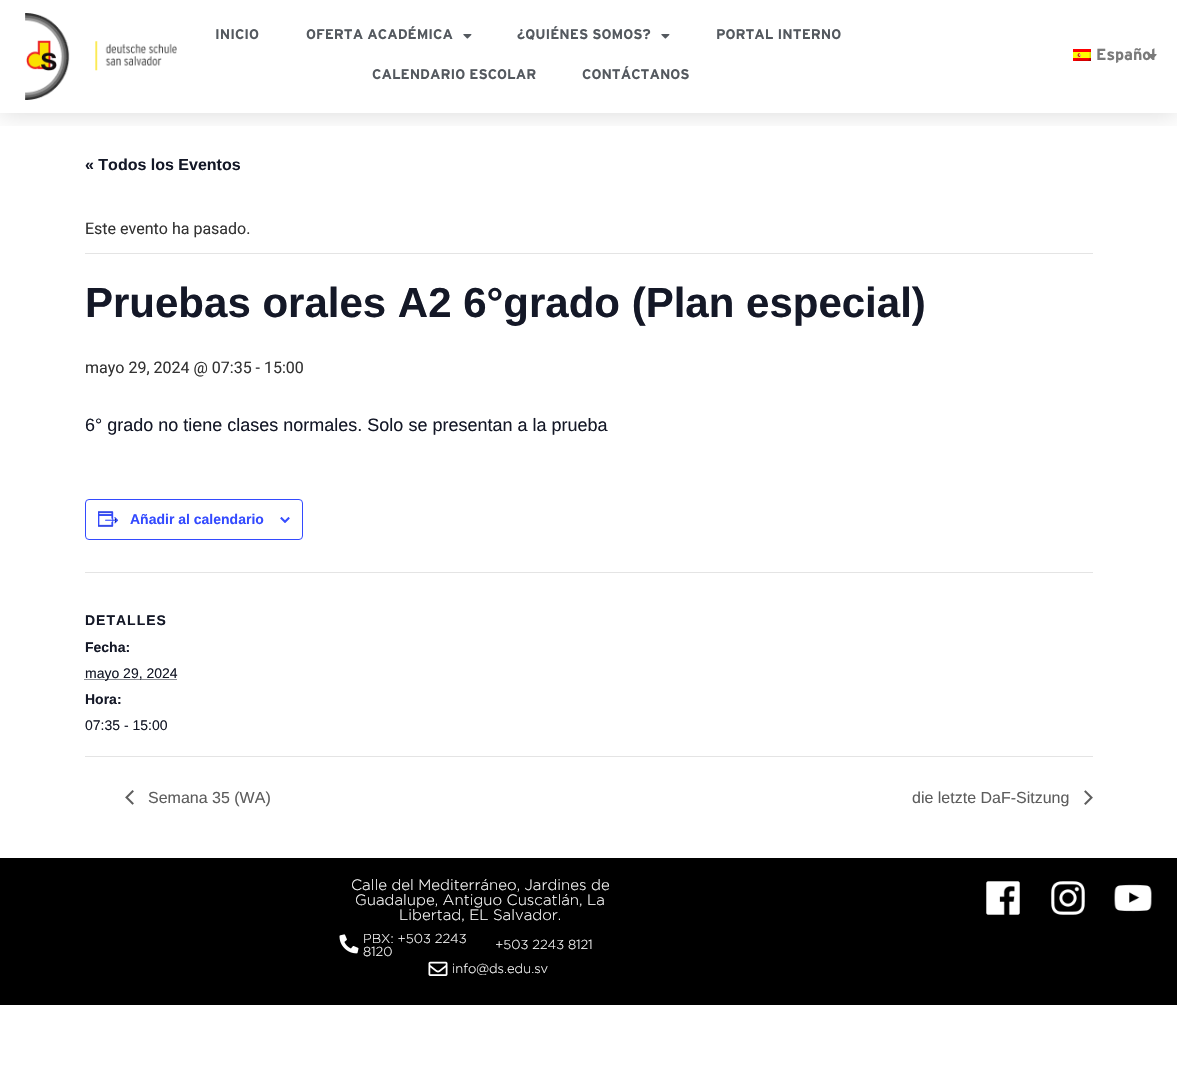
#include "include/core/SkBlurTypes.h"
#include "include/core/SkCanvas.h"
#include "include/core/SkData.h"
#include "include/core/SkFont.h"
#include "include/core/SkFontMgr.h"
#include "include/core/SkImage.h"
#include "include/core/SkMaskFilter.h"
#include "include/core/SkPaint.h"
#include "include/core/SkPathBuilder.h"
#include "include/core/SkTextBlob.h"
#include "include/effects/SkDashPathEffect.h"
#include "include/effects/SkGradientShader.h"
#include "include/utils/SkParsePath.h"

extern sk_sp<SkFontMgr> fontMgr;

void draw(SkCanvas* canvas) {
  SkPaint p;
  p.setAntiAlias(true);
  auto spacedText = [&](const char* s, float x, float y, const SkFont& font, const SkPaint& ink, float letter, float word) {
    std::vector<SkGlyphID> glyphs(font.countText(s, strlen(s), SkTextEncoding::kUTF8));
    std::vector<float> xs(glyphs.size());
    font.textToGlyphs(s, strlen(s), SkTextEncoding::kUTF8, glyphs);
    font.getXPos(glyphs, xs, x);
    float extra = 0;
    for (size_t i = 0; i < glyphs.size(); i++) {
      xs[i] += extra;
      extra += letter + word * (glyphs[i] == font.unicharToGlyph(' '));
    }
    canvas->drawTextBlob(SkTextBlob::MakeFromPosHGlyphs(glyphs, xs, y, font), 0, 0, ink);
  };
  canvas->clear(SK_ColorWHITE);
  canvas->save();
  canvas->clipRect(SkRect::MakeLTRB(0, 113, 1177, 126));
  p.setColor(SkColorSetARGB(38, 0, 0, 0));
  p.setMaskFilter(SkMaskFilter::MakeBlur(kNormal_SkBlurStyle, 12));
  canvas->drawRect(SkRect::MakeLTRB(0, 0, 1177, 113), p);
  p.setMaskFilter(nullptr);
  canvas->restore();
  canvas->drawImageRect(SkImages::DeferredFromEncodedData(SkData::MakeFromFileName("images/1.png")), SkRect::MakeLTRB(25, 13, 177, 100), SkSamplingOptions());
  canvas->drawImageRect(SkImages::DeferredFromEncodedData(SkData::MakeFromFileName("images/2.png")), SkRect::MakeLTRB(463, 34, 472, 39), SkSamplingOptions());
  canvas->drawImageRect(SkImages::DeferredFromEncodedData(SkData::MakeFromFileName("images/2.png")), SkRect::MakeLTRB(661, 34, 670, 39), SkSamplingOptions());
  canvas->drawImageRect(SkImages::DeferredFromEncodedData(SkData::MakeFromFileName("images/3.png")), SkRect::MakeLTRB(1073, 49, 1091, 61), SkSamplingOptions());
  p.setColor(SkColorSetRGB(228, 228, 228));
  canvas->drawRect(SkRect::MakeLTRB(85, 253, 1093, 254), p);
  p.setStyle(SkPaint::kStroke_Style);
  p.setStrokeWidth(1);
  p.setColor(SkColorSetRGB(51, 74, 255));
  canvas->drawRoundRect(SkRect::MakeLTRB(85.5f, 499.5f, 302.5f, 539.5f), 3.5f, 3.5f, p);
  canvas->drawImageRect(SkImages::DeferredFromEncodedData(SkData::MakeFromFileName("images/5.png")), SkRect::MakeLTRB(98, 511, 119, 527), SkSamplingOptions());
  canvas->drawImageRect(SkImages::DeferredFromEncodedData(SkData::MakeFromFileName("images/6.png")), SkRect::MakeLTRB(280, 517, 290, 523), SkSamplingOptions());
  p.setStyle(SkPaint::kFill_Style);
  p.setColor(SkColorSetRGB(228, 228, 228));
  canvas->drawRect(SkRect::MakeLTRB(85, 572, 1093, 573), p);
  p.setStyle(SkPaint::kStroke_Style);
  p.setColor(SkColorSetRGB(20, 24, 39));
  p.setPathEffect(SkDashPathEffect::Make({{1, 1}}, 0));
  canvas->drawPath(SkPathBuilder().moveTo(84.5f, 679.5f).lineTo(177, 679.5f).detach(), p);
  p.setPathEffect(nullptr);
  p.setStyle(SkPaint::kFill_Style);
  p.setColor(SkColorSetRGB(228, 228, 228));
  canvas->drawRect(SkRect::MakeLTRB(85, 756, 1093, 757), p);
  canvas->drawImageRect(SkImages::DeferredFromEncodedData(SkData::MakeFromFileName("images/7.png")), SkRect::MakeLTRB(125, 790, 134, 805), SkSamplingOptions());
  canvas->drawImageRect(SkImages::DeferredFromEncodedData(SkData::MakeFromFileName("images/8.png")), SkRect::MakeLTRB(1084, 790, 1093, 805), SkSamplingOptions());
  p.setColor(SK_ColorBLACK);
  canvas->drawRect(SkRect::MakeLTRB(0, 858, 1177, 1005), p);
  canvas->drawImageRect(SkImages::DeferredFromEncodedData(SkData::MakeFromFileName("images/9.png")), SkRect::MakeLTRB(339, 934, 359, 954), SkSamplingOptions());
  canvas->drawImageRect(SkImages::DeferredFromEncodedData(SkData::MakeFromFileName("images/10.png")), SkRect::MakeLTRB(428, 961, 448, 976), SkSamplingOptions());
  canvas->drawImageRect(SkImages::DeferredFromEncodedData(SkData::MakeFromFileName("images/11.png")), SkRect::MakeLTRB(986, 881, 1020, 915), SkSamplingOptions());
  canvas->drawImageRect(SkImages::DeferredFromEncodedData(SkData::MakeFromFileName("images/12.png")), SkRect::MakeLTRB(1051, 881, 1085, 915), SkSamplingOptions());
  canvas->drawImageRect(SkImages::DeferredFromEncodedData(SkData::MakeFromFileName("images/13.png")), SkRect::MakeLTRB(1114, 884, 1152, 912), SkSamplingOptions());
  SkFont font1(fontMgr->matchFamilyStyle("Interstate", SkFontStyle::Bold()), 14);
  font1.setSubpixel(true);
  p.setColor(SkColorSetRGB(84, 89, 95));
  canvas->drawString("INICIO", 215, 39, font1, p);
  canvas->drawString("OFERTA ACADÉMICA", 306, 39, font1, p);
  canvas->drawString("¿QUIÉNES SOMOS?", 517, 39, font1, p);
  canvas->drawString("PORTAL INTERNO", 716, 39, font1, p);
  canvas->drawString("CALENDARIO ESCOLAR", 372, 79, font1, p);
  canvas->drawString("CONTÁCTANOS", 582, 79, font1, p);
  SkFont font2(fontMgr->matchFamilyStyle("Interstate", SkFontStyle::Bold()), 16);
  font2.setSubpixel(true);
  p.setColor(SkColorSetRGB(122, 122, 122));
  canvas->drawString("Español", 1096, 60, font2, p);
  canvas->drawImageRect(SkImages::DeferredFromEncodedData(SkData::MakeFromFileName("images/4.png")), SkRect::MakeLTRB(1147, 54, 1157, 60), SkSamplingOptions());
  SkFont font3(fontMgr->matchFamilyStyle("Liberation Sans", SkFontStyle::Bold()), 16);
  font3.setSubpixel(true);
  p.setColor(SkColorSetRGB(20, 24, 39));
  canvas->drawString("« Todos los Eventos", 85, 170, font3, p);
  SkFont font4(fontMgr->matchFamilyStyle("Roboto", SkFontStyle::Normal()), 16);
  font4.setSubpixel(true);
  p.setColor(SkColorSetRGB(51, 51, 51));
  canvas->drawString("Este evento ha pasado.", 85, 234, font4, p);
  SkFont font5(fontMgr->matchFamilyStyle("Liberation Sans", SkFontStyle::Bold()), 42);
  font5.setSubpixel(true);
  p.setColor(SkColorSetRGB(20, 24, 39));
  canvas->drawString("Pruebas orales A2 6°grado (Plan especial)", 85, 317, font5, p);
  p.setColor(SkColorSetRGB(51, 51, 51));
  canvas->drawString("mayo 29, 2024 @ 07:35 - 15:00", 85, 373, font4, p);
  SkFont font6(fontMgr->matchFamilyStyle("Liberation Sans", SkFontStyle::Normal()), 18);
  font6.setSubpixel(true);
  p.setColor(SkColorSetRGB(20, 24, 39));
  canvas->drawString("6° grado no tiene clases normales. Solo se presentan a la prueba", 85, 431, font6, p);
  SkFont font7(fontMgr->matchFamilyStyle("Liberation Sans", SkFontStyle::Bold()), 14);
  font7.setSubpixel(true);
  p.setColor(SkColorSetRGB(51, 74, 255));
  canvas->drawString("Añadir al calendario", 130, 524, font7, p);
  p.setColor(SkColorSetRGB(20, 24, 39));
  spacedText("DETALLES", 85, 625, font7, p, 1, 0);
  canvas->drawString("Fecha:", 85, 652, font7, p);
  SkFont font8(fontMgr->matchFamilyStyle("Liberation Sans", SkFontStyle::Normal()), 14);
  font8.setSubpixel(true);
  canvas->drawString("mayo 29, 2024", 85, 678, font8, p);
  canvas->drawString("Hora:", 85, 704, font7, p);
  canvas->drawString("07:35 - 15:00", 85, 730, font8, p);
  SkFont font9(fontMgr->matchFamilyStyle("Liberation Sans", SkFontStyle::Normal()), 16);
  font9.setSubpixel(true);
  p.setColor(SkColorSetRGB(93, 93, 93));
  canvas->drawString("Semana 35 (WA)", 148, 803, font9, p);
  canvas->drawString("die letzte DaF-Sitzung", 912, 803, font9, p);
  SkFont font10(fontMgr->matchFamilyStyle("Gotham", SkFontStyle(300, SkFontStyle::kNormal_Width, SkFontStyle::kUpright_Slant)), 15);
  font10.setSubpixel(true);
  p.setColor(SK_ColorWHITE);
  canvas->drawString("Calle del Mediterráneo, Jardines de", 351, 890, font10, p);
  canvas->drawString("Guadalupe, Antiguo Cuscatlán, La", 355, 905, font10, p);
  canvas->drawString("Libertad, EL Salvador.", 399, 920, font10, p);
  SkFont font11(fontMgr->matchFamilyStyle("Gotham", SkFontStyle(300, SkFontStyle::kNormal_Width, SkFontStyle::kUpright_Slant)), 13);
  font11.setSubpixel(true);
  canvas->drawString("PBX: +503 2243", 363, 943, font11, p);
  canvas->drawString("8120", 363, 956, font11, p);
  canvas->drawString("+503 2243 8121", 495, 949, font11, p);
  canvas->drawString("info@ds.edu.sv", 452, 973, font11, p);
}
